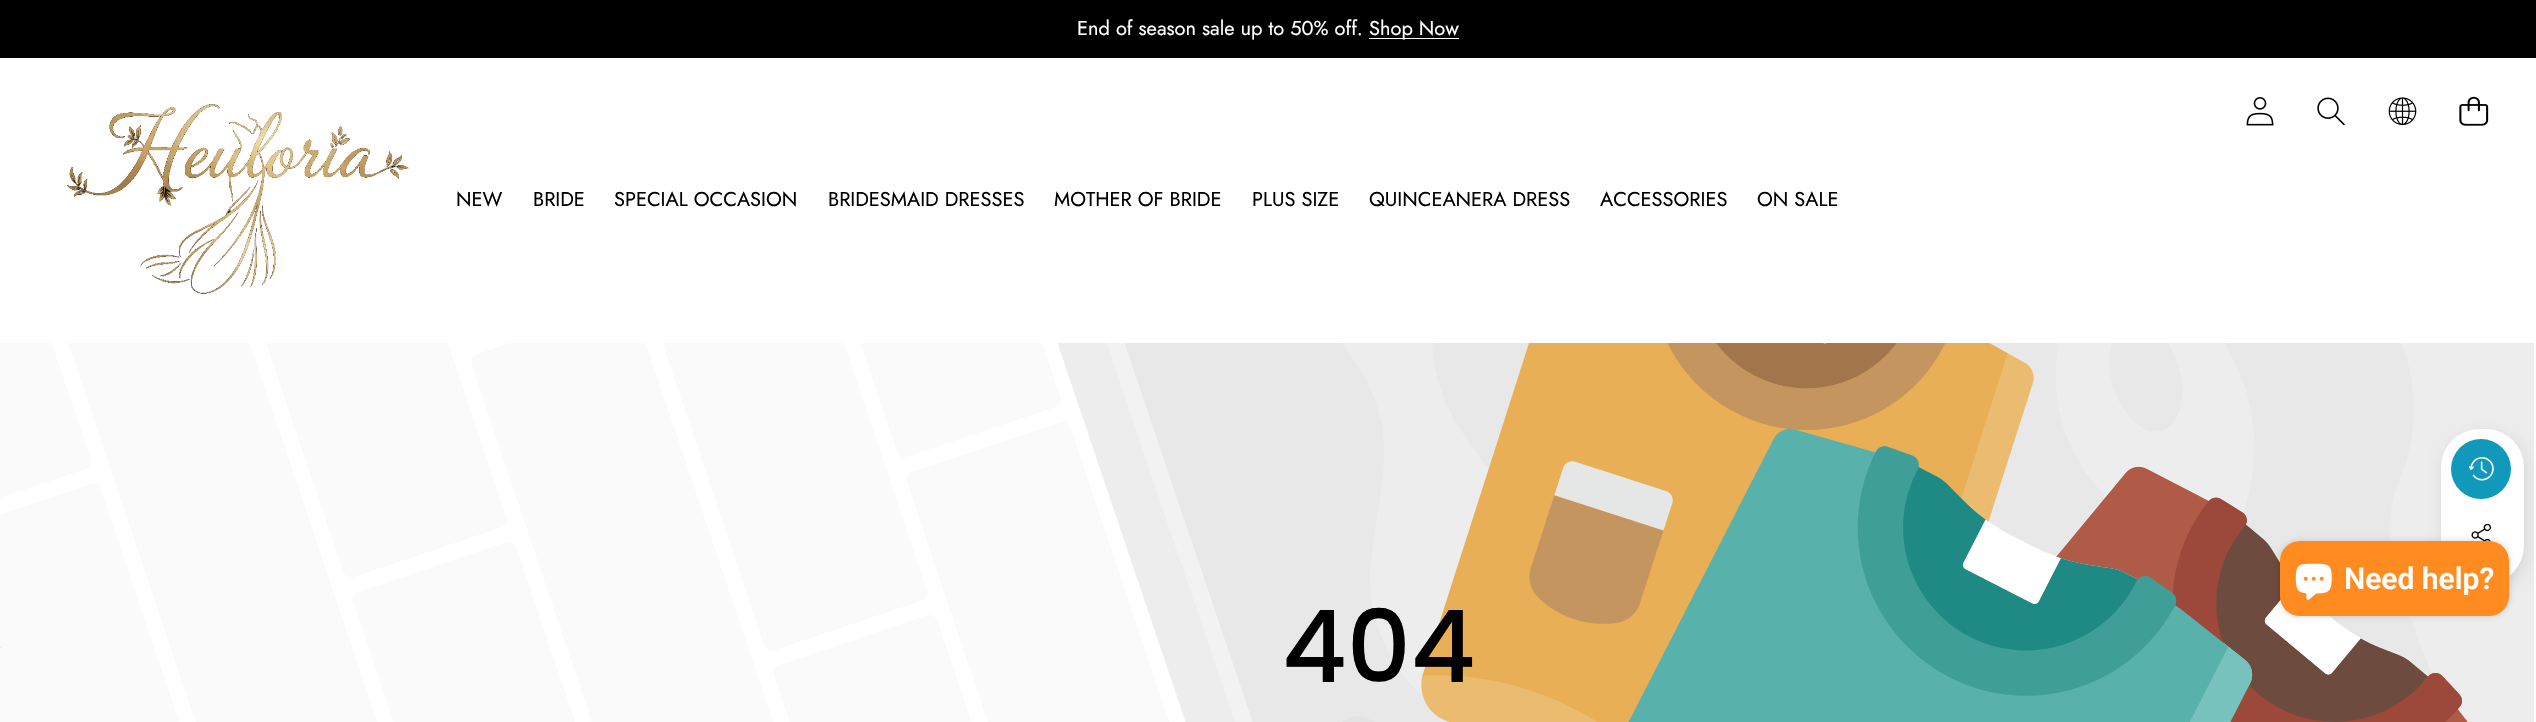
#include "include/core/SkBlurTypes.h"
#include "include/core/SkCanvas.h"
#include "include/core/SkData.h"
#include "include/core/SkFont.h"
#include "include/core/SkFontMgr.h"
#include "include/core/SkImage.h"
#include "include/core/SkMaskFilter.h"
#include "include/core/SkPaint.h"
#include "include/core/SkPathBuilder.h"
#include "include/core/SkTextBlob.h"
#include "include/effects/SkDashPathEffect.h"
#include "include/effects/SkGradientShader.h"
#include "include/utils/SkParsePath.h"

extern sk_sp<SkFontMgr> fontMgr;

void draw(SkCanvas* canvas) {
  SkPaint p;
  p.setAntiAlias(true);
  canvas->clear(SK_ColorWHITE);
  p.setColor(SK_ColorBLACK);
  canvas->drawRect(SkRect::MakeLTRB(0, 0, 2536, 58), p);
  p.setColor(SK_ColorWHITE);
  canvas->drawRect(SkRect::MakeLTRB(1369, 38, 1459, 39), p);
  canvas->drawImageRect(SkImages::DeferredFromEncodedData(SkData::MakeFromFileName("images/1.png")), SkRect::MakeLTRB(2246, 97, 2274, 126), SkSamplingOptions());
  canvas->drawImageRect(SkImages::DeferredFromEncodedData(SkData::MakeFromFileName("images/2.png")), SkRect::MakeLTRB(2317, 97, 2345, 126), SkSamplingOptions());
  canvas->drawImageRect(SkImages::DeferredFromEncodedData(SkData::MakeFromFileName("images/3.png")), SkRect::MakeLTRB(2388, 97, 2417, 126), SkSamplingOptions());
  canvas->drawImageRect(SkImages::DeferredFromEncodedData(SkData::MakeFromFileName("images/4.png")), SkRect::MakeLTRB(2459, 96, 2489, 126), SkSamplingOptions());
  canvas->drawImageRect(SkImages::DeferredFromEncodedData(SkData::MakeFromFileName("images/5.png")), SkRect::MakeLTRB(67, 104, 409, 294), SkSamplingOptions());
  canvas->drawImageRect(SkImages::DeferredFromEncodedData(SkData::MakeFromFileName("images/9.png")), SkRect::MakeLTRB(0, 343, 2534, 722), SkSamplingOptions());
  p.setColor(SkColorSetARGB(26, 0, 0, 0));
  p.setMaskFilter(SkMaskFilter::MakeBlur(kNormal_SkBlurStyle, 7.5f));
  canvas->drawRoundRect(SkRect::MakeLTRB(2444, 434, 2526, 589), 38, 38, p);
  p.setMaskFilter(nullptr);
  p.setColor(SK_ColorWHITE);
  canvas->drawRoundRect(SkRect::MakeLTRB(2441, 429, 2524, 584), 38, 38, p);
  p.setColor(SkColorSetRGB(17, 153, 187));
  canvas->drawCircle(2481, 469, 30, p);
  canvas->drawImageRect(SkImages::DeferredFromEncodedData(SkData::MakeFromFileName("images/6.png")), SkRect::MakeLTRB(2469, 457, 2494, 481), SkSamplingOptions());
  canvas->drawImageRect(SkImages::DeferredFromEncodedData(SkData::MakeFromFileName("images/7.png")), SkRect::MakeLTRB(2471, 524, 2491, 542), SkSamplingOptions());
  p.setColor(SkColorSetARGB(38, 0, 0, 0));
  p.setMaskFilter(SkMaskFilter::MakeBlur(kNormal_SkBlurStyle, 3));
  canvas->drawRoundRect(SkRect::MakeLTRB(2280, 541, 2509, 616), 20, 20, p);
  p.setMaskFilter(nullptr);
  p.setColor(SkColorSetRGB(255, 139, 33));
  canvas->drawRoundRect(SkRect::MakeLTRB(2280, 541, 2509, 616), 20, 20, p);
  canvas->drawImageRect(SkImages::DeferredFromEncodedData(SkData::MakeFromFileName("images/8.png")), SkRect::MakeLTRB(2295, 563, 2332, 600), SkSamplingOptions());
  SkFont font1(fontMgr->matchFamilyStyle("Jost", SkFontStyle::Normal()), 20);
  font1.setSubpixel(true);
  p.setColor(SK_ColorWHITE);
  canvas->drawString("End of season sale up to 50% off.", 1077, 35, font1, p);
  canvas->drawString("Shop Now", 1369, 35, font1, p);
  p.setColor(SK_ColorBLACK);
  canvas->drawString("NEW", 456, 206, font1, p);
  canvas->drawString("BRIDE", 533, 206, font1, p);
  canvas->drawString("SPECIAL OCCASION", 614, 206, font1, p);
  canvas->drawString("BRIDESMAID DRESSES", 828, 206, font1, p);
  canvas->drawString("MOTHER OF BRIDE", 1054, 206, font1, p);
  canvas->drawString("PLUS SIZE", 1252, 206, font1, p);
  canvas->drawString("QUINCEANERA DRESS", 1369, 206, font1, p);
  canvas->drawString("ACCESSORIES", 1600, 206, font1, p);
  canvas->drawString("ON SALE", 1757, 206, font1, p);
  SkFont font2(fontMgr->matchFamilyStyle("Roboto", SkFontStyle(600, SkFontStyle::kNormal_Width, SkFontStyle::kUpright_Slant)), 30);
  font2.setSubpixel(true);
  p.setColor(SK_ColorWHITE);
  canvas->drawString("Need help?", 2344, 589, font2, p);
  SkFont font3(fontMgr->matchFamilyStyle("Poppins", SkFontStyle(500, SkFontStyle::kNormal_Width, SkFontStyle::kUpright_Slant)), 100);
  font3.setSubpixel(true);
  p.setColor(SK_ColorBLACK);
  canvas->drawString("404", 1282, 682, font3, p);
}
